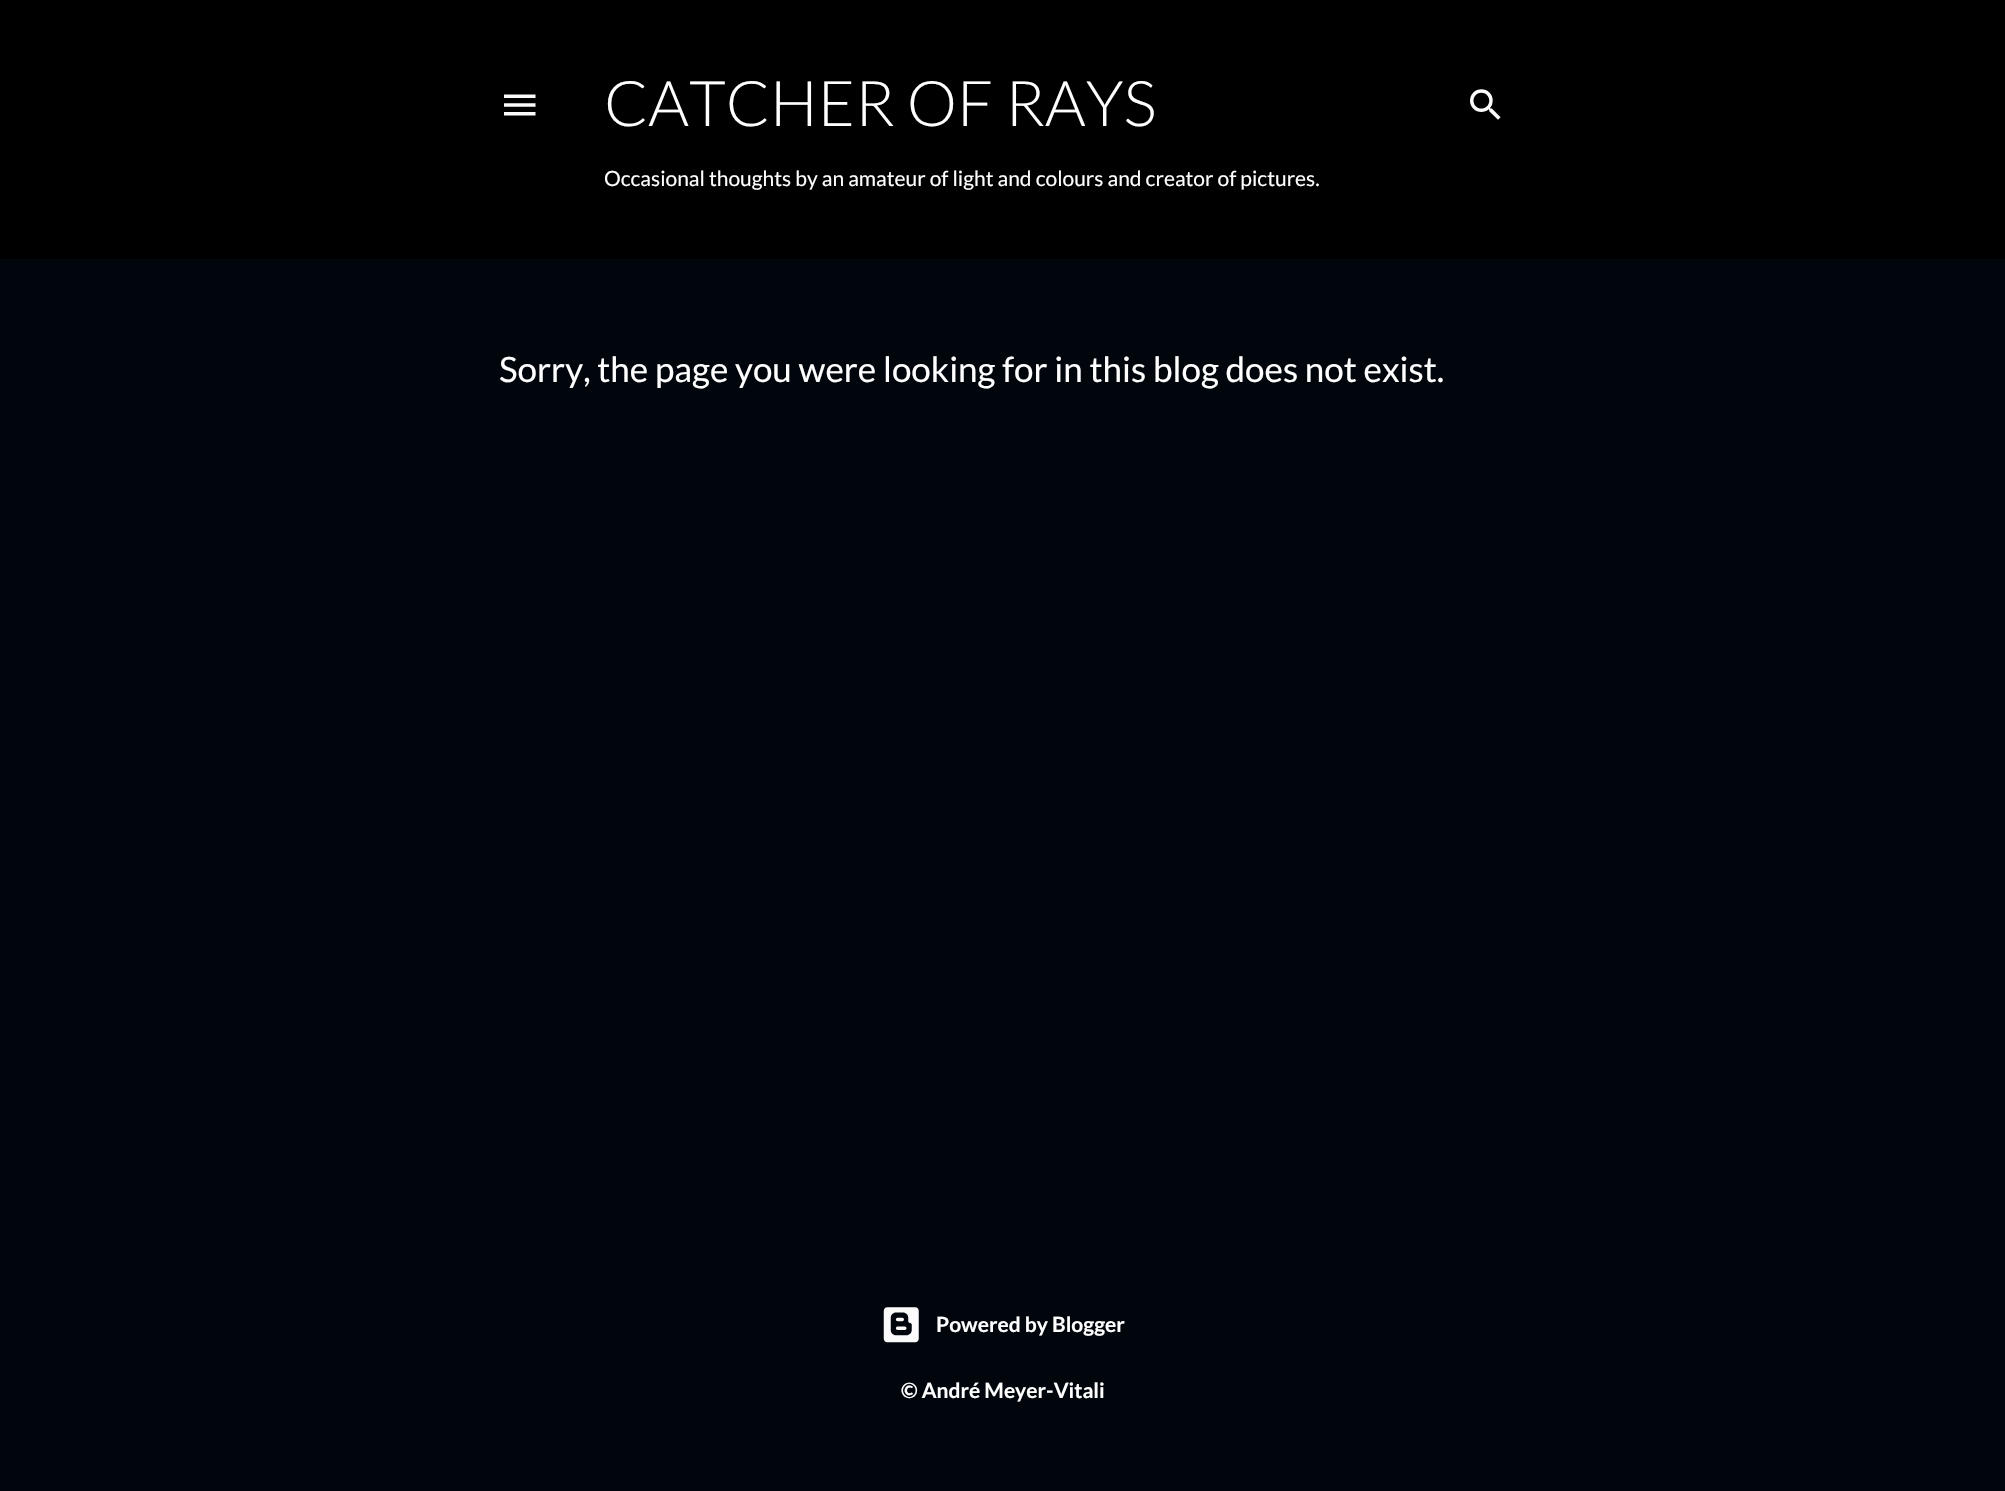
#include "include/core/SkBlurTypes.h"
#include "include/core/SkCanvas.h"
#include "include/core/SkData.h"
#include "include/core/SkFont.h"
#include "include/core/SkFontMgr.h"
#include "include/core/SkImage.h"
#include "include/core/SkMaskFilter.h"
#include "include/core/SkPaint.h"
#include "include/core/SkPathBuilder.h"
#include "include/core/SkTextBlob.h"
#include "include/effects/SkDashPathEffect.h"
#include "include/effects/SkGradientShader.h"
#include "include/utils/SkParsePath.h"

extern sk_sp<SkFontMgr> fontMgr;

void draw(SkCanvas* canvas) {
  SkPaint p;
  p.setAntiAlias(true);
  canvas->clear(SkColorSetRGB(1, 5, 12));
  p.setColor(SK_ColorBLACK);
  canvas->drawRect(SkRect::MakeLTRB(0, 0, 2005, 259), p);
  canvas->drawImageRect(SkImages::DeferredFromEncodedData(SkData::MakeFromFileName("images/1.png")), SkRect::MakeLTRB(504, 94, 536, 116), SkSamplingOptions());
  canvas->drawImageRect(SkImages::DeferredFromEncodedData(SkData::MakeFromFileName("images/2.png")), SkRect::MakeLTRB(1470, 89, 1501, 120), SkSamplingOptions());
  canvas->drawImageRect(SkImages::DeferredFromEncodedData(SkData::MakeFromFileName("images/3.png")), SkRect::MakeLTRB(883, 1307, 919, 1343), SkSamplingOptions());
  SkFont font1(fontMgr->matchFamilyStyle("Lato", SkFontStyle(300, SkFontStyle::kNormal_Width, SkFontStyle::kUpright_Slant)), 63);
  font1.setSubpixel(true);
  p.setColor(SK_ColorWHITE);
  canvas->drawString("CATCHER OF RAYS", 604, 126, font1, p);
  SkFont font2(fontMgr->matchFamilyStyle("Lato", SkFontStyle::Normal()), 21);
  font2.setSubpixel(true);
  canvas->drawString("Occasional thoughts by an amateur of light and colours and creator of pictures.", 604, 186, font2, p);
  SkFont font3(fontMgr->matchFamilyStyle("Lato", SkFontStyle::Normal()), 35);
  font3.setSubpixel(true);
  canvas->drawString("Sorry, the page you were looking for in this blog does not exist.", 499, 382, font3, p);
  SkFont font4(fontMgr->matchFamilyStyle("Lato", SkFontStyle::Bold()), 21);
  font4.setSubpixel(true);
  canvas->drawString("Powered by Blogger", 936, 1332, font4, p);
  canvas->drawString("© André Meyer-Vitali", 901, 1398, font4, p);
}
